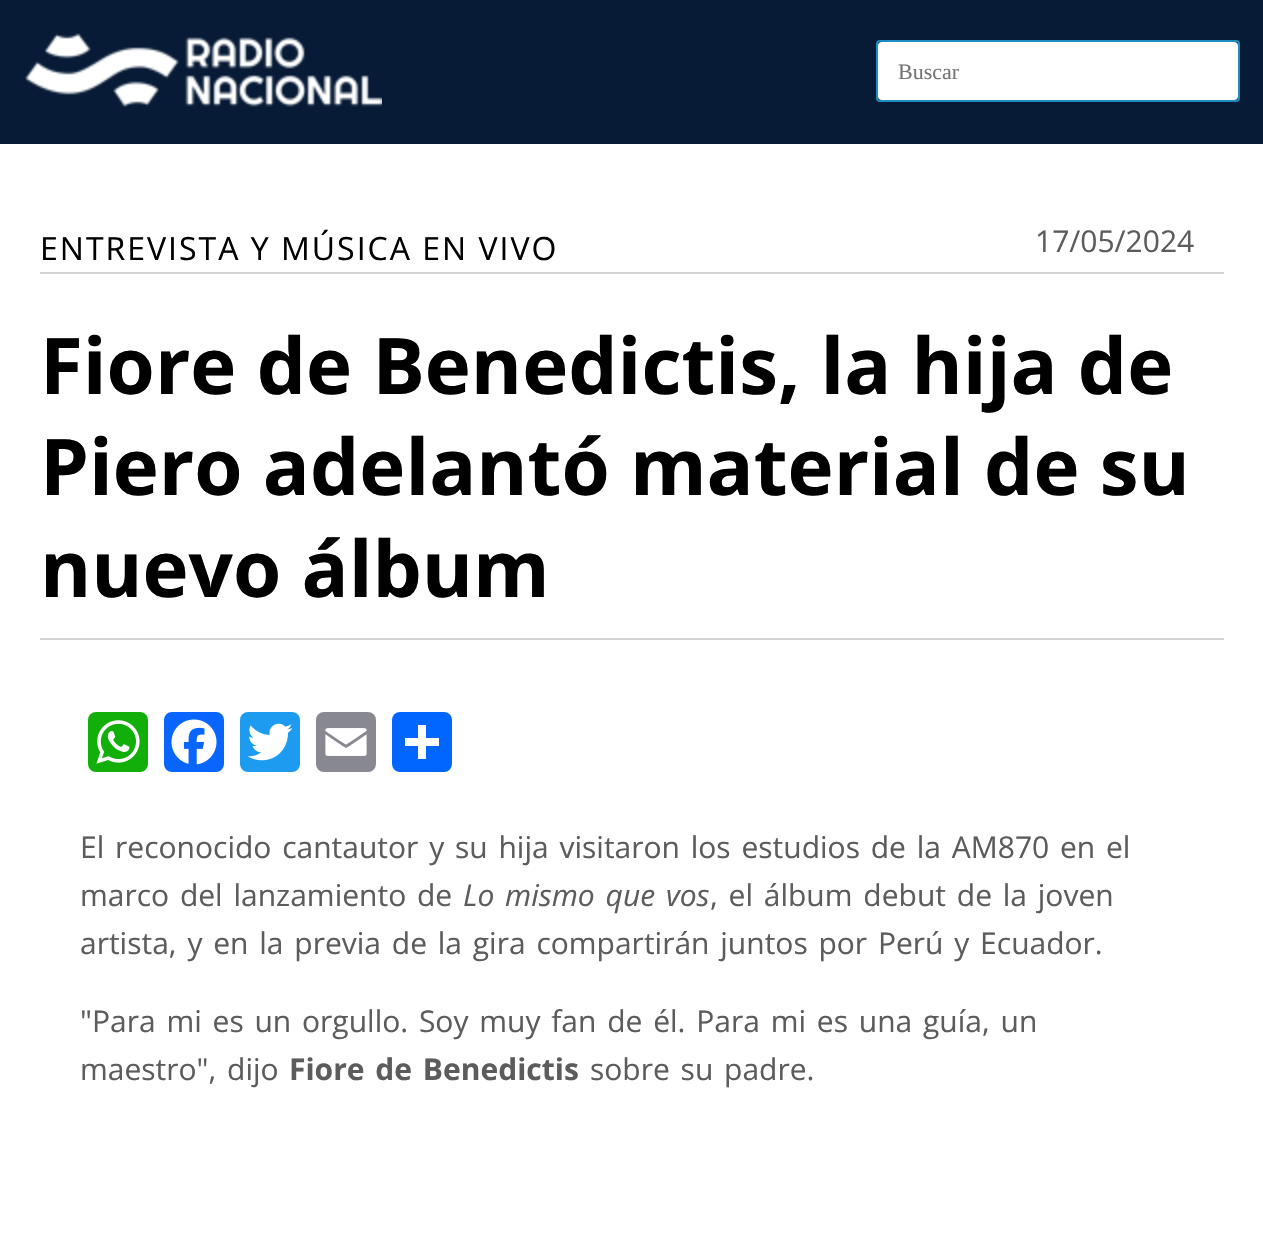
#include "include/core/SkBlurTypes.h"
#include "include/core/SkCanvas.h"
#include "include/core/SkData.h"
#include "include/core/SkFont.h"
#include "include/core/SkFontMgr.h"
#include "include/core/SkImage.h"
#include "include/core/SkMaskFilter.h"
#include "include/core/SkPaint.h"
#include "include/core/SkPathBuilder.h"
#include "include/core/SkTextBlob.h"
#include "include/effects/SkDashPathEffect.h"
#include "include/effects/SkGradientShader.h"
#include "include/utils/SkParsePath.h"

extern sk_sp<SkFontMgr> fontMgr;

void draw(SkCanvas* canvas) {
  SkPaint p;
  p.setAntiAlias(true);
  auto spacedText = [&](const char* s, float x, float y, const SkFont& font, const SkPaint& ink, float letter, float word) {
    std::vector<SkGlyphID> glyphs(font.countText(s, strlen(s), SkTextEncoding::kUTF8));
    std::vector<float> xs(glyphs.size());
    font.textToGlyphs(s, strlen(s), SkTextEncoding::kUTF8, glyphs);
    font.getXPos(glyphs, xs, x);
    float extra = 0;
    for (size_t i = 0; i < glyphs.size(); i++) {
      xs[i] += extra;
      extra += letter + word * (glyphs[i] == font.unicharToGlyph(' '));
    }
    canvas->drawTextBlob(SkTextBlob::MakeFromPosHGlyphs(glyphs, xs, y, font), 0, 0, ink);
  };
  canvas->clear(SK_ColorWHITE);
  p.setColor(SkColorSetRGB(7, 27, 54));
  canvas->drawRect(SkRect::MakeLTRB(0, 0, 1263, 144), p);
  canvas->drawImageRect(SkImages::DeferredFromEncodedData(SkData::MakeFromFileName("images/1.png")), SkRect::MakeLTRB(25, 33, 382, 107), SkSamplingOptions());
  p.setStyle(SkPaint::kStroke_Style);
  p.setStrokeWidth(2);
  p.setColor(SkColorSetRGB(30, 140, 190));
  canvas->drawRoundRect(SkRect::MakeLTRB(877, 41, 1239, 101), 3, 3, p);
  p.setStyle(SkPaint::kFill_Style);
  p.setColor(SK_ColorWHITE);
  canvas->drawRoundRect(SkRect::MakeLTRB(878, 42, 1238, 100), 4, 4, p);
  p.setColor(SkColorSetRGB(211, 211, 211));
  canvas->drawRect(SkRect::MakeLTRB(40, 272, 1224, 274), p);
  canvas->drawRect(SkRect::MakeLTRB(40, 638, 1224, 640), p);
  p.setColor(SkColorSetRGB(18, 175, 10));
  canvas->drawRoundRect(SkRect::MakeLTRB(88, 712, 148, 772), 8, 8, p);
  canvas->drawImageRect(SkImages::DeferredFromEncodedData(SkData::MakeFromFileName("images/2.png")), SkRect::MakeLTRB(96, 720, 140, 764), SkSamplingOptions());
  p.setColor(SkColorSetRGB(8, 102, 255));
  canvas->drawRoundRect(SkRect::MakeLTRB(164, 712, 224, 772), 8, 8, p);
  canvas->drawImageRect(SkImages::DeferredFromEncodedData(SkData::MakeFromFileName("images/3.png")), SkRect::MakeLTRB(171, 719, 217, 765), SkSamplingOptions());
  p.setColor(SkColorSetRGB(29, 155, 240));
  canvas->drawRoundRect(SkRect::MakeLTRB(240, 712, 300, 772), 8, 8, p);
  canvas->drawImageRect(SkImages::DeferredFromEncodedData(SkData::MakeFromFileName("images/4.png")), SkRect::MakeLTRB(247, 723, 293, 761), SkSamplingOptions());
  p.setColor(SkColorSetRGB(136, 137, 144));
  canvas->drawRoundRect(SkRect::MakeLTRB(316, 712, 376, 772), 8, 8, p);
  canvas->drawImageRect(SkImages::DeferredFromEncodedData(SkData::MakeFromFileName("images/5.png")), SkRect::MakeLTRB(325, 728, 367, 756), SkSamplingOptions());
  p.setColor(SkColorSetRGB(1, 102, 255));
  canvas->drawRoundRect(SkRect::MakeLTRB(392, 712, 452, 772), 8, 8, p);
  p.setColor(SK_ColorWHITE);
  canvas->drawRect(SkRect::MakeLTRB(418, 725, 426, 759), p);
  canvas->drawRect(SkRect::MakeLTRB(405, 738, 439, 746), p);
  SkFont font1(fontMgr->matchFamilyStyle("Liberation Serif", SkFontStyle::Normal()), 22);
  font1.setSubpixel(true);
  p.setColor(SkColorSetRGB(117, 117, 117));
  canvas->drawString("Buscar", 898, 79, font1, p);
  SkFont font2(fontMgr->matchFamilyStyle("Open Sans", SkFontStyle::Normal()), 32);
  font2.setSubpixel(true);
  p.setColor(SK_ColorBLACK);
  spacedText("ENTREVISTA Y MÚSICA EN VIVO", 40, 260, font2, p, 2, 0);
  SkFont font3(fontMgr->matchFamilyStyle("Open Sans", SkFontStyle::Normal()), 30);
  font3.setSubpixel(true);
  p.setColor(SkColorSetRGB(92, 92, 92));
  canvas->drawString("17/05/2024", 1035, 252, font3, p);
  SkFont font4(fontMgr->matchFamilyStyle("Open Sans", SkFontStyle::Bold()), 78);
  font4.setSubpixel(true);
  p.setColor(SK_ColorBLACK);
  canvas->drawString("Fiore de Benedictis, la hija de", 40, 394, font4, p);
  canvas->drawString("Piero adelantó material de su", 40, 495, font4, p);
  canvas->drawString("nuevo álbum", 40, 597, font4, p);
  p.setColor(SkColorSetRGB(92, 92, 92));
  spacedText("El reconocido cantautor y su hija visitaron los estudios de la AM870 en el", 80, 858, font3, p, 0, 3);
  spacedText("marco del lanzamiento de", 80, 906, font3, p, 0, 3);
  SkFont font5(fontMgr->matchFamilyStyle("Open Sans", SkFontStyle::Italic()), 30);
  font5.setSubpixel(true);
  spacedText("Lo mismo que vos", 463, 906, font5, p, 0, 3);
  spacedText(", el álbum debut de la joven", 710, 906, font3, p, 0, 3);
  spacedText("artista, y en la previa de la gira compartirán juntos por Perú y Ecuador.", 80, 954, font3, p, 0, 3);
  spacedText("\"Para mi es un orgullo. Soy muy fan de él. Para mi es una guía, un", 80, 1032, font3, p, 0, 3);
  spacedText("maestro\", dijo", 80, 1080, font3, p, 0, 3);
  SkFont font6(fontMgr->matchFamilyStyle("Open Sans", SkFontStyle::Bold()), 30);
  font6.setSubpixel(true);
  spacedText("Fiore de Benedictis", 289, 1080, font6, p, 0, 3);
  spacedText("sobre su padre.", 590, 1080, font3, p, 0, 3);
}
